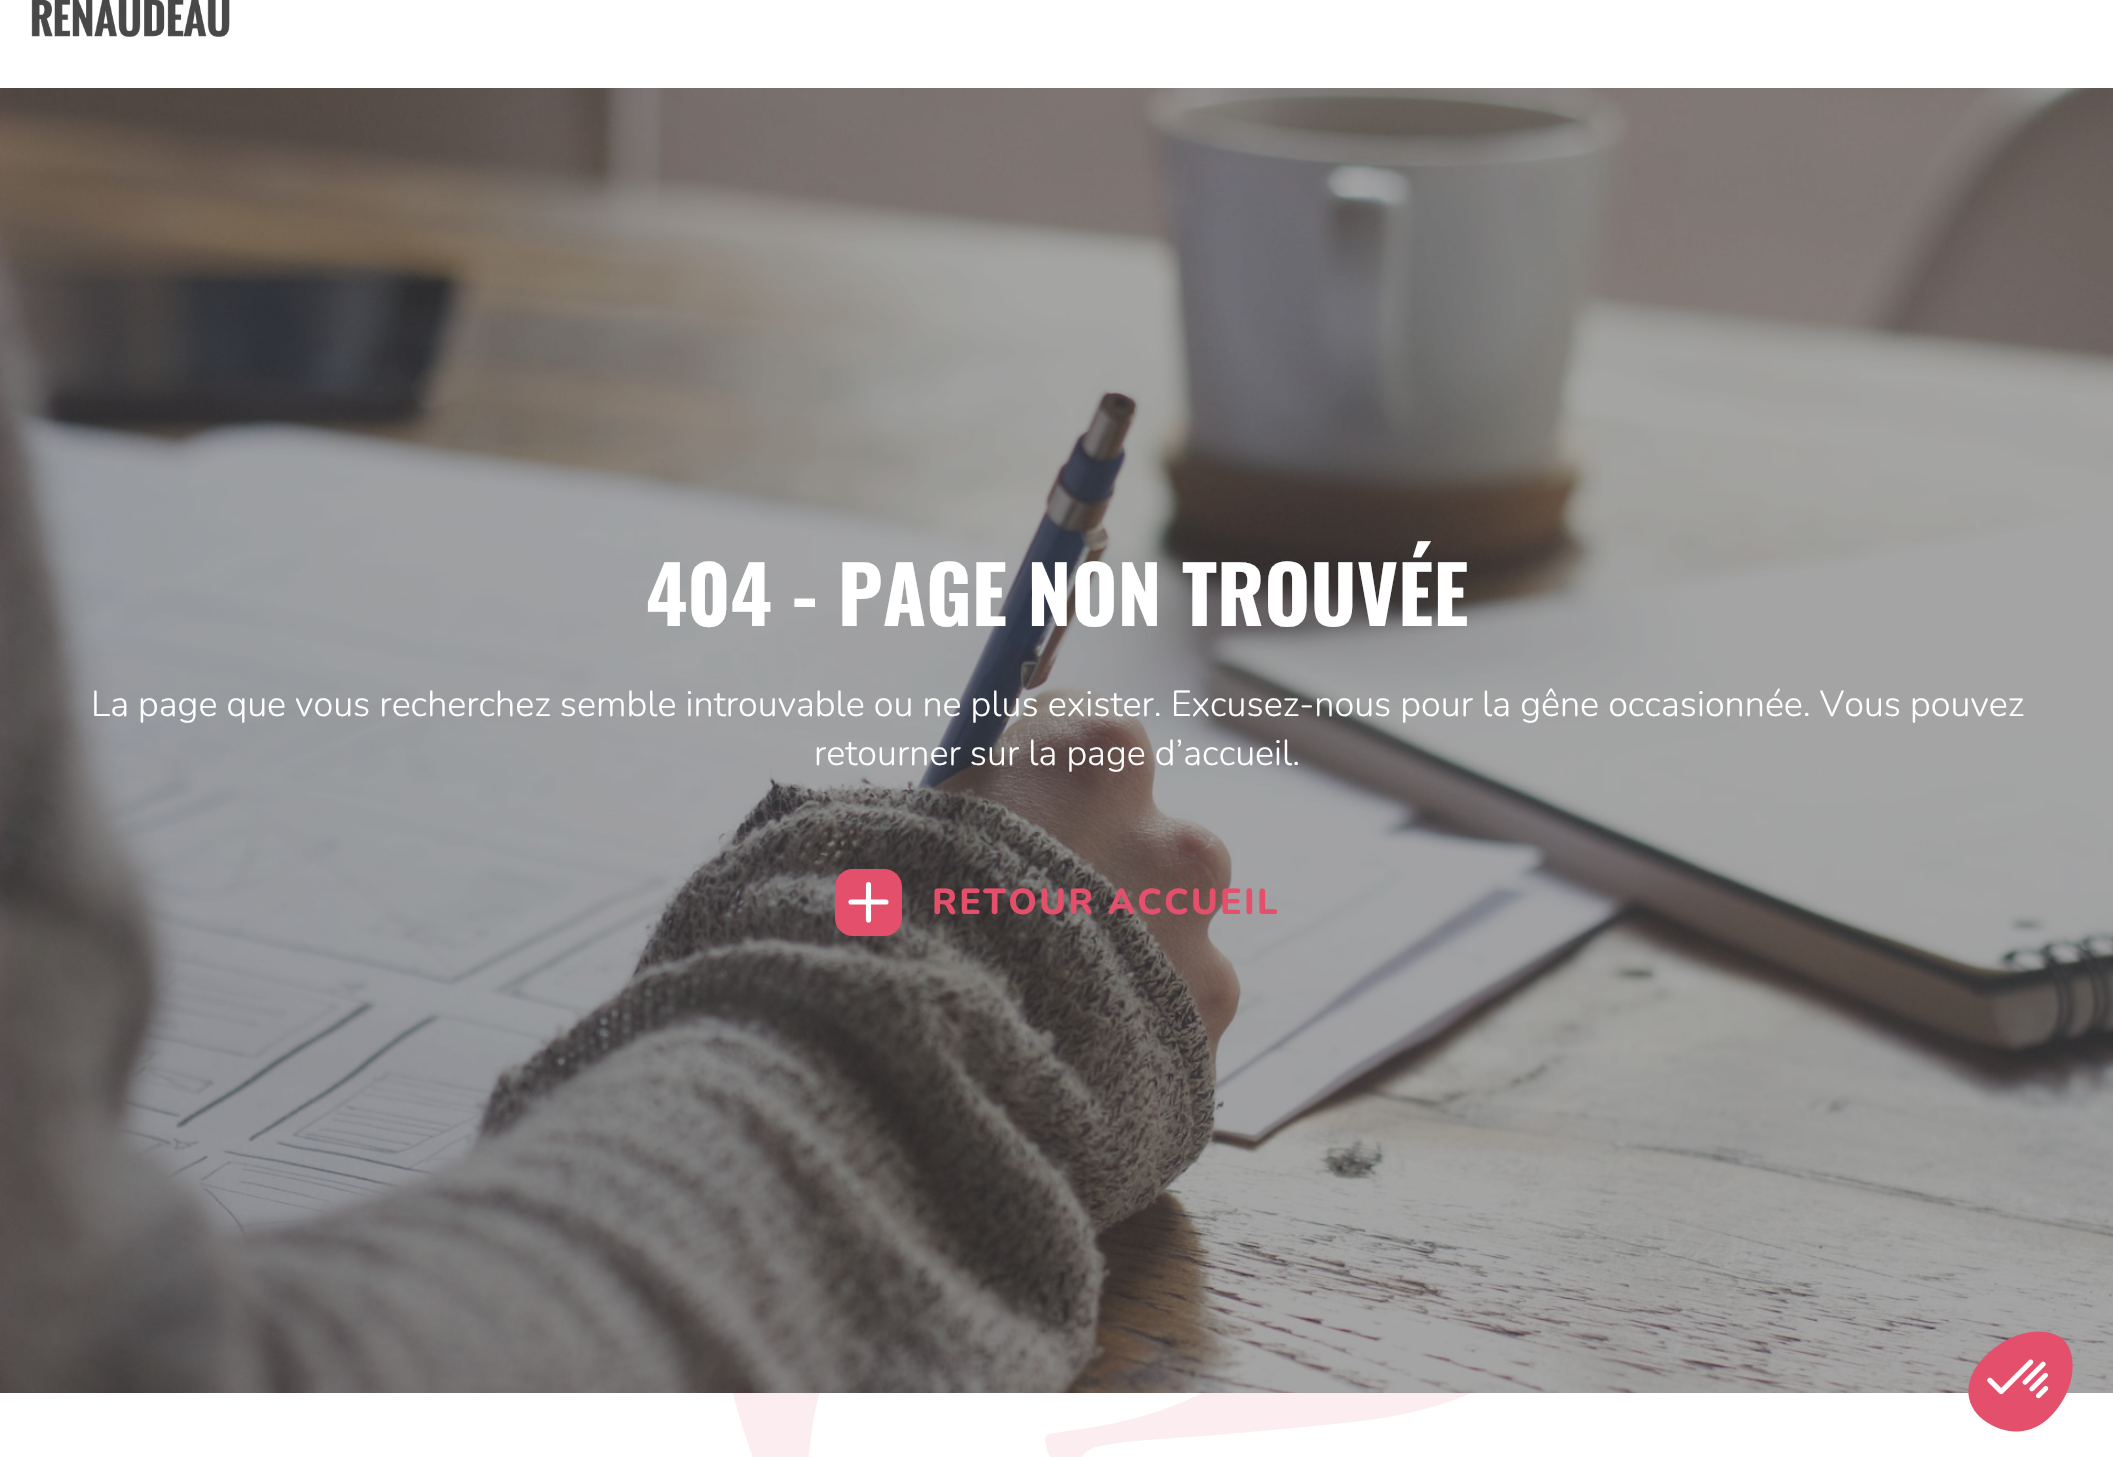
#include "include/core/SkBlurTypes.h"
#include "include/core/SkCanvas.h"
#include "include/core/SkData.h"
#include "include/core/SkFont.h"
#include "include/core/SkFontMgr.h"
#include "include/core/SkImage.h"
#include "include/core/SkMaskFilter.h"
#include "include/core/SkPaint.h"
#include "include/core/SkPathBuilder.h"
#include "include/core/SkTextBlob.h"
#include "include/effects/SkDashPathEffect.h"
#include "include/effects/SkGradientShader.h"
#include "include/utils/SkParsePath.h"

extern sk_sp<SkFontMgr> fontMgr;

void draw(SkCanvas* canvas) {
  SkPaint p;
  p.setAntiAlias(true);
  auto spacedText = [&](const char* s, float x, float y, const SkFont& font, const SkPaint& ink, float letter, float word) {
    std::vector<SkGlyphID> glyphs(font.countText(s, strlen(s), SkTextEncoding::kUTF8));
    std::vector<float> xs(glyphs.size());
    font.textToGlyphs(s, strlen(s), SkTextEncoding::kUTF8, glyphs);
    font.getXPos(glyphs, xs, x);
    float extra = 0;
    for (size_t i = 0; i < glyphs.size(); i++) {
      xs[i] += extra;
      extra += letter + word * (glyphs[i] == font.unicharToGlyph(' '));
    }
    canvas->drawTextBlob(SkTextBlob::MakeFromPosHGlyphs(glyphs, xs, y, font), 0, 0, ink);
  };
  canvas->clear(SK_ColorWHITE);
  canvas->drawImageRect(SkImages::DeferredFromEncodedData(SkData::MakeFromFileName("images/1.png")), SkRect::MakeLTRB(31, 0, 230, 37), SkSamplingOptions());
  canvas->drawImageRect(SkImages::DeferredFromEncodedData(SkData::MakeFromFileName("images/2.png")), SkRect::MakeLTRB(0, 88, 2113, 1393), SkSamplingOptions());
  p.setColor(SkColorSetRGB(228, 80, 107));
  canvas->drawRoundRect(SkRect::MakeLTRB(835, 869, 902, 936), 18, 18, p);
  p.setStyle(SkPaint::kStroke_Style);
  p.setStrokeWidth(5.1f);
  p.setStrokeCap(SkPaint::kRound_Cap);
  p.setStrokeJoin(SkPaint::kRound_Join);
  p.setColor(SK_ColorWHITE);
  canvas->drawPath(SkPathBuilder().moveTo(868.5f, 884.5f).lineTo(868.5f, 920).moveTo(886, 902).lineTo(851, 902).detach(), p);
  canvas->drawImageRect(SkImages::DeferredFromEncodedData(SkData::MakeFromFileName("images/3.png")), SkRect::MakeLTRB(732, 1393, 1471, 1457), SkSamplingOptions());
  canvas->drawImageRect(SkImages::DeferredFromEncodedData(SkData::MakeFromFileName("images/4.png")), SkRect::MakeLTRB(1968, 1331, 2073, 1432), SkSamplingOptions());
  SkFont font1(fontMgr->matchFamilyStyle("Oswald", SkFontStyle::Bold()), 78.75f);
  font1.setSubpixel(true);
  p.setStyle(SkPaint::kFill_Style);
  canvas->drawString("404 - PAGE NON TROUVÉE", 646, 626, font1, p);
  SkFont font2(fontMgr->matchFamilyStyle("Nunito", SkFontStyle(300, SkFontStyle::kNormal_Width, SkFontStyle::kUpright_Slant)), 36);
  font2.setSubpixel(true);
  canvas->drawString("La page que vous recherchez semble introuvable ou ne plus exister. Excusez-nous pour la gêne occasionnée. Vous pouvez", 91, 716, font2, p);
  canvas->drawString("retourner sur la page d’accueil.", 814, 765, font2, p);
  SkFont font3(fontMgr->matchFamilyStyle("Nunito", SkFontStyle(800, SkFontStyle::kNormal_Width, SkFontStyle::kUpright_Slant)), 36);
  font3.setSubpixel(true);
  p.setColor(SkColorSetRGB(228, 80, 107));
  spacedText("RETOUR ACCUEIL", 932, 914, font3, p, 2.25f, 0);
}
